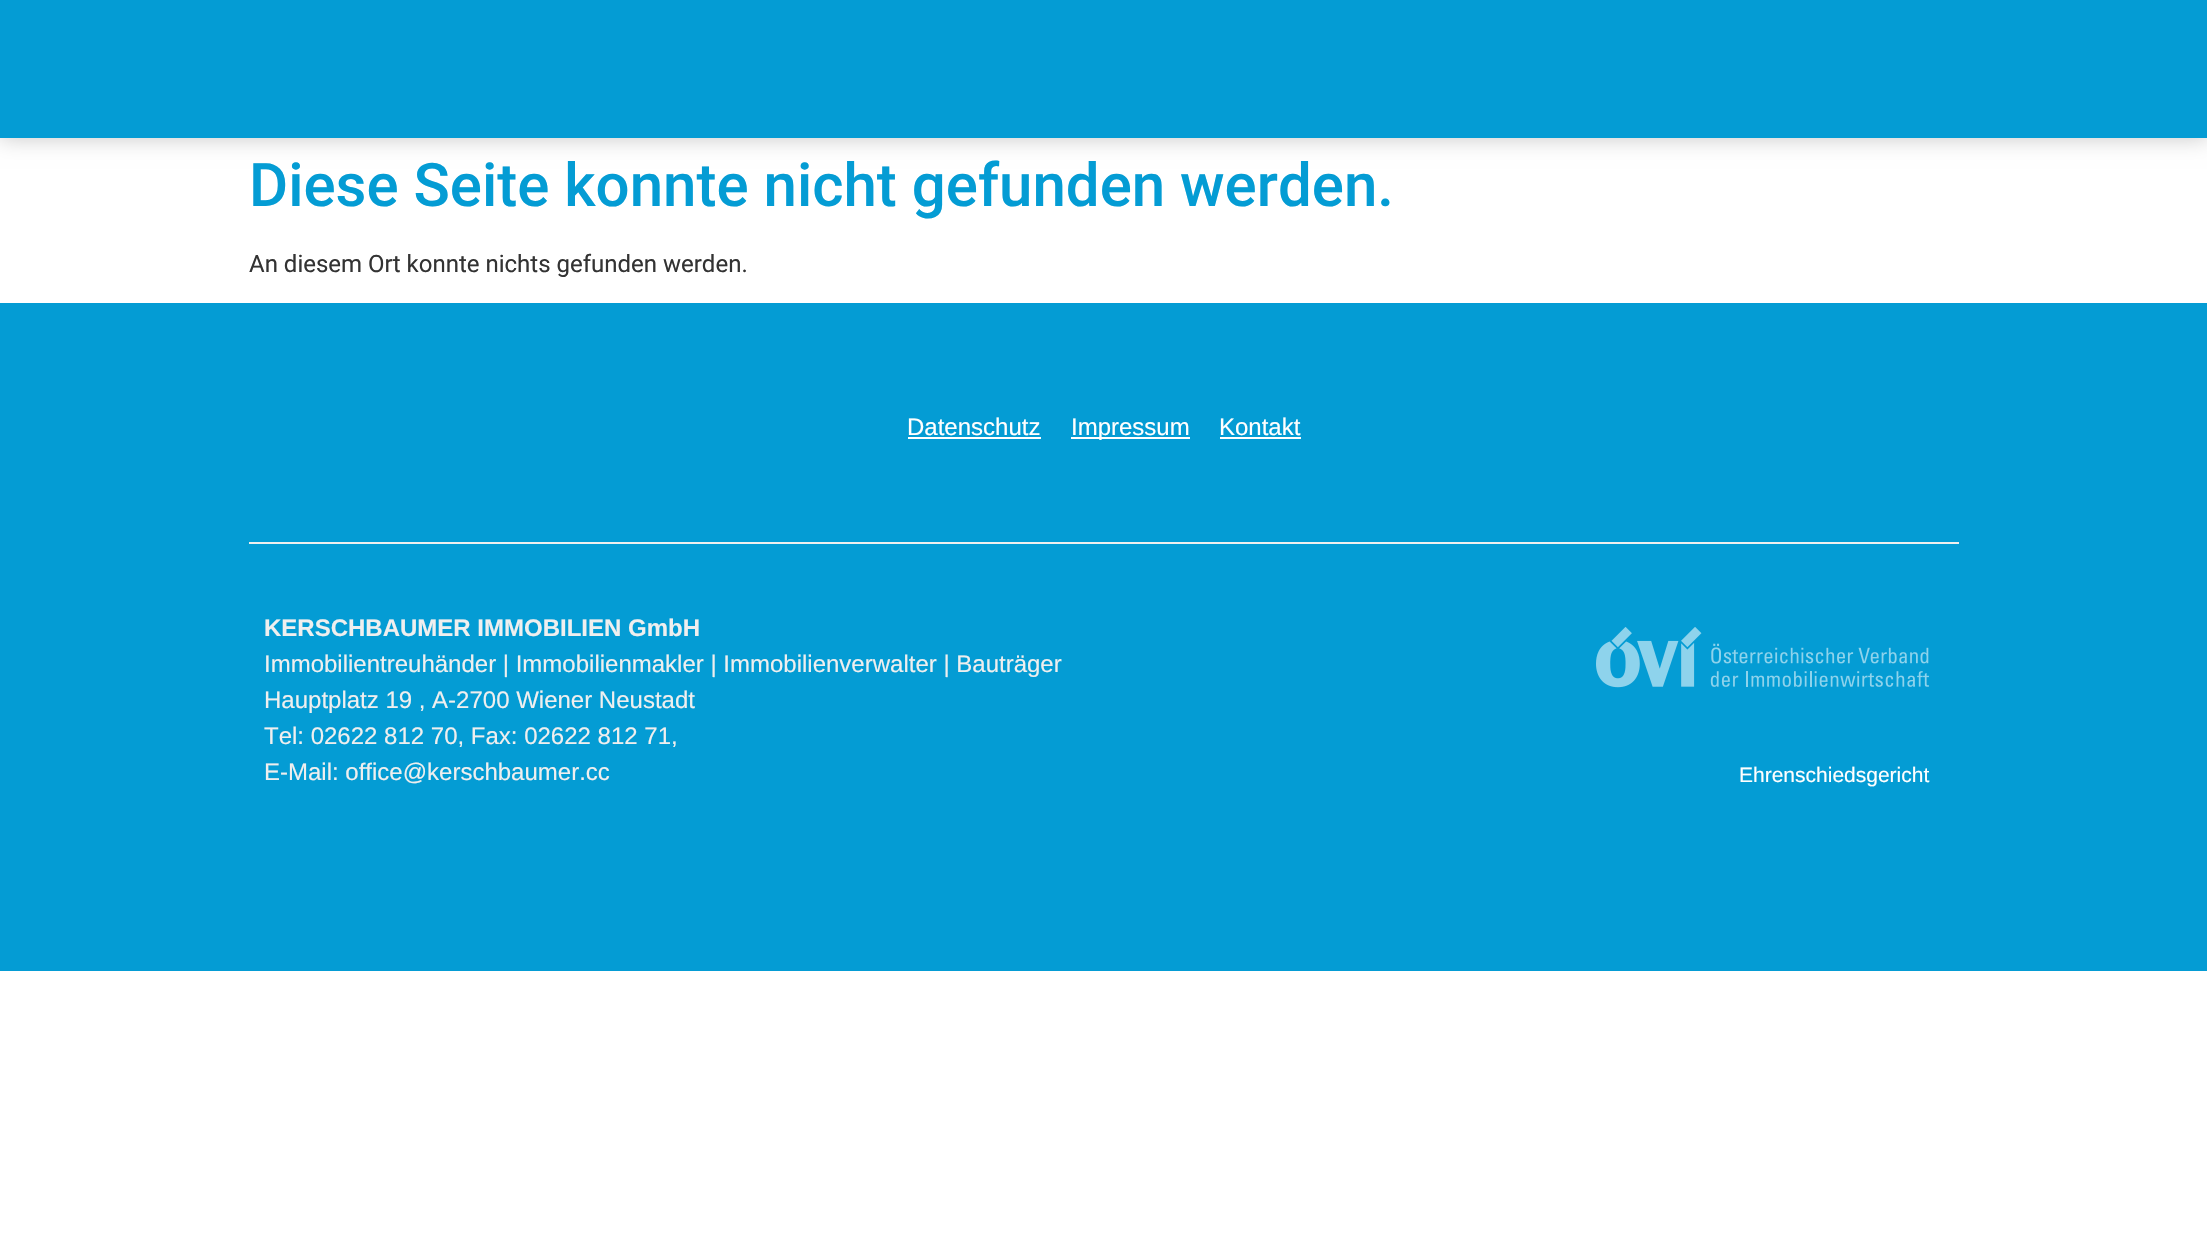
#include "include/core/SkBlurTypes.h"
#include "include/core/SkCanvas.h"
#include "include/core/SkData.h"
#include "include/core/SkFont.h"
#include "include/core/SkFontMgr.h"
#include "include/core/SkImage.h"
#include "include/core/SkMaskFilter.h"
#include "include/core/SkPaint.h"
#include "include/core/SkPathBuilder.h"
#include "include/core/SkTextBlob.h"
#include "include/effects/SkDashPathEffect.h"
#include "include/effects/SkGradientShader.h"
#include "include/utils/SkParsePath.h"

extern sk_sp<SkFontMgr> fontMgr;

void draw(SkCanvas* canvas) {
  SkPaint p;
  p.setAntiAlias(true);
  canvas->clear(SK_ColorWHITE);
  p.setColor(SkColorSetARGB(56, 0, 0, 0));
  p.setMaskFilter(SkMaskFilter::MakeBlur(kNormal_SkBlurStyle, 10.5f));
  canvas->drawRect(SkRect::MakeLTRB(0, 0, 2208, 138), p);
  p.setMaskFilter(nullptr);
  p.setColor(SkColorSetRGB(4, 156, 212));
  canvas->drawRect(SkRect::MakeLTRB(0, 0, 2207, 138), p);
  canvas->drawRect(SkRect::MakeLTRB(0, 303, 2207, 971), p);
  p.setColor(SK_ColorWHITE);
  canvas->drawRect(SkRect::MakeLTRB(908, 437, 1041, 439), p);
  canvas->drawRect(SkRect::MakeLTRB(1071, 437, 1190, 439), p);
  canvas->drawRect(SkRect::MakeLTRB(1220, 437, 1301, 439), p);
  p.setColor(SkColorSetRGB(239, 239, 239));
  canvas->drawRect(SkRect::MakeLTRB(249, 542, 1959, 544), p);
  canvas->drawImageRect(SkImages::DeferredFromEncodedData(SkData::MakeFromFileName("images/1.png")), SkRect::MakeLTRB(1596, 627, 1929, 688), SkSamplingOptions());
  SkFont font1(fontMgr->matchFamilyStyle("Roboto", SkFontStyle(500, SkFontStyle::kNormal_Width, SkFontStyle::kUpright_Slant)), 60);
  font1.setSubpixel(true);
  p.setColor(SkColorSetRGB(4, 156, 212));
  canvas->drawString("Diese Seite konnte nicht gefunden werden.", 249, 206, font1, p);
  SkFont font2(fontMgr->matchFamilyStyle("Roboto", SkFontStyle::Normal()), 24);
  font2.setSubpixel(true);
  p.setColor(SkColorSetRGB(51, 51, 51));
  canvas->drawString("An diesem Ort konnte nichts gefunden werden.", 249, 272, font2, p);
  SkFont font3(fontMgr->matchFamilyStyle("Liberation Sans", SkFontStyle::Normal()), 24);
  font3.setSubpixel(true);
  p.setColor(SK_ColorWHITE);
  canvas->drawString("Datenschutz", 907, 435, font3, p);
  canvas->drawString("Impressum", 1071, 435, font3, p);
  canvas->drawString("Kontakt", 1219, 435, font3, p);
  SkFont font4(fontMgr->matchFamilyStyle("Liberation Sans", SkFontStyle::Bold()), 24);
  font4.setSubpixel(true);
  p.setColor(SkColorSetRGB(239, 239, 239));
  canvas->drawString("KERSCHBAUMER IMMOBILIEN GmbH", 264, 636, font4, p);
  canvas->drawString("Immobilientreuhänder | Immobilienmakler | Immobilienverwalter | Bauträger", 264, 672, font3, p);
  canvas->drawString("Hauptplatz 19 , A-2700 Wiener Neustadt", 264, 708, font3, p);
  canvas->drawString("Tel: 02622 812 70, Fax: 02622 812 71,", 264, 744, font3, p);
  canvas->drawString("E-Mail: office@kerschbaumer.cc", 264, 780, font3, p);
  SkFont font5(fontMgr->matchFamilyStyle("Liberation Sans", SkFontStyle::Normal()), 21);
  font5.setSubpixel(true);
  p.setColor(SK_ColorWHITE);
  canvas->drawString("Ehrenschiedsgericht", 1739, 782, font5, p);
}
